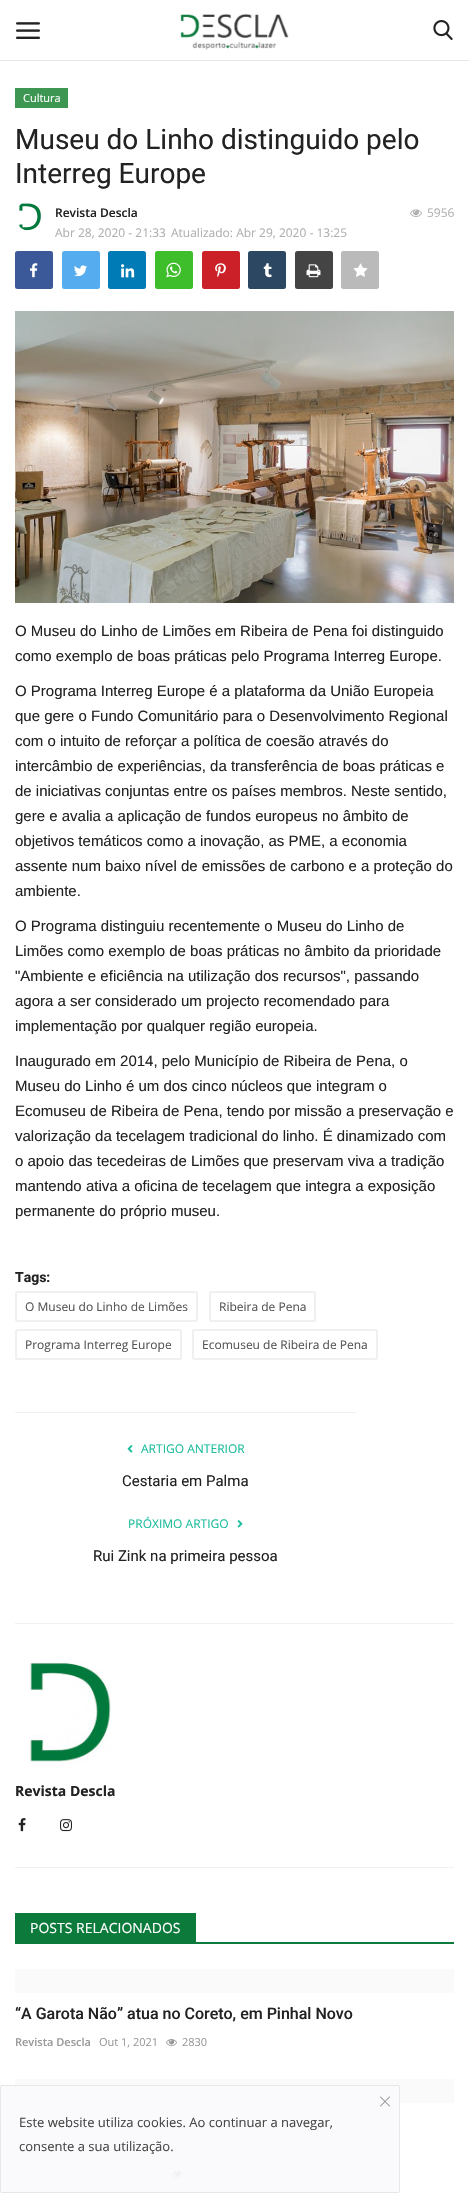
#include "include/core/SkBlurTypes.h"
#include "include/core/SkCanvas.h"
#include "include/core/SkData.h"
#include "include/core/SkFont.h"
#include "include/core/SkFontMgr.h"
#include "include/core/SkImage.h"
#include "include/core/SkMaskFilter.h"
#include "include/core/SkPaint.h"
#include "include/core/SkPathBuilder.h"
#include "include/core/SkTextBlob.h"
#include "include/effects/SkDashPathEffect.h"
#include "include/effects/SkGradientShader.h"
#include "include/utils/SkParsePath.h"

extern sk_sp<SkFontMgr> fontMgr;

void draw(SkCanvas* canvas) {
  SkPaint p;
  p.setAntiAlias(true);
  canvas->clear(SK_ColorWHITE);
  p.setColor(SkColorSetRGB(230, 230, 230));
  canvas->drawRect(SkRect::MakeLTRB(0, 60, 469, 61), p);
  canvas->drawImageRect(SkImages::DeferredFromEncodedData(SkData::MakeFromFileName("images/1.png")), SkRect::MakeLTRB(16, 22, 40, 39), SkSamplingOptions());
  canvas->drawImageRect(SkImages::DeferredFromEncodedData(SkData::MakeFromFileName("images/2.png")), SkRect::MakeLTRB(180, 14, 289, 50), SkSamplingOptions());
  canvas->drawImageRect(SkImages::DeferredFromEncodedData(SkData::MakeFromFileName("images/3.png")), SkRect::MakeLTRB(433, 20, 453, 40), SkSamplingOptions());
  p.setColor(SkColorSetRGB(61, 150, 82));
  canvas->drawRect(SkRect::MakeLTRB(15, 88, 68, 108), p);
  canvas->drawImageRect(SkImages::DeferredFromEncodedData(SkData::MakeFromFileName("images/4.png")), SkRect::MakeLTRB(19, 203, 41, 231), SkSamplingOptions());
  canvas->drawImageRect(SkImages::DeferredFromEncodedData(SkData::MakeFromFileName("images/5.png")), SkRect::MakeLTRB(410, 209, 422, 217), SkSamplingOptions());
  p.setColor(SkColorSetRGB(59, 89, 152));
  canvas->drawRoundRect(SkRect::MakeLTRB(15, 251, 53, 289), 2.5f, 2.5f, p);
  canvas->drawImageRect(SkImages::DeferredFromEncodedData(SkData::MakeFromFileName("images/6.png")), SkRect::MakeLTRB(30, 263, 38, 278), SkSamplingOptions());
  p.setColor(SkColorSetRGB(85, 172, 238));
  canvas->drawRoundRect(SkRect::MakeLTRB(62, 251, 100, 289), 2.5f, 2.5f, p);
  canvas->drawImageRect(SkImages::DeferredFromEncodedData(SkData::MakeFromFileName("images/7.png")), SkRect::MakeLTRB(74, 265, 87, 277), SkSamplingOptions());
  p.setColor(SkColorSetRGB(0, 123, 181));
  canvas->drawRoundRect(SkRect::MakeLTRB(108, 251, 146, 289), 2.5f, 2.5f, p);
  canvas->drawImageRect(SkImages::DeferredFromEncodedData(SkData::MakeFromFileName("images/8.png")), SkRect::MakeLTRB(121, 264, 135, 278), SkSamplingOptions());
  p.setColor(SkColorSetRGB(62, 190, 43));
  canvas->drawRoundRect(SkRect::MakeLTRB(155, 251, 193, 289), 2.5f, 2.5f, p);
  canvas->drawImageRect(SkImages::DeferredFromEncodedData(SkData::MakeFromFileName("images/9.png")), SkRect::MakeLTRB(166, 262, 181, 278), SkSamplingOptions());
  p.setColor(SkColorSetRGB(203, 32, 39));
  canvas->drawRoundRect(SkRect::MakeLTRB(202, 251, 240, 289), 2.5f, 2.5f, p);
  canvas->drawImageRect(SkImages::DeferredFromEncodedData(SkData::MakeFromFileName("images/10.png")), SkRect::MakeLTRB(215, 263, 226, 278), SkSamplingOptions());
  p.setColor(SkColorSetRGB(44, 71, 98));
  canvas->drawRoundRect(SkRect::MakeLTRB(248, 251, 286, 289), 2.5f, 2.5f, p);
  canvas->drawImageRect(SkImages::DeferredFromEncodedData(SkData::MakeFromFileName("images/11.png")), SkRect::MakeLTRB(263, 263, 272, 278), SkSamplingOptions());
  p.setColor(SkColorSetRGB(68, 68, 68));
  canvas->drawRoundRect(SkRect::MakeLTRB(295, 251, 333, 289), 2.5f, 2.5f, p);
  canvas->drawImageRect(SkImages::DeferredFromEncodedData(SkData::MakeFromFileName("images/12.png")), SkRect::MakeLTRB(306, 264, 321, 278), SkSamplingOptions());
  p.setColor(SkColorSetRGB(186, 186, 186));
  canvas->drawRoundRect(SkRect::MakeLTRB(341, 251, 379, 289), 2.5f, 2.5f, p);
  canvas->drawImageRect(SkImages::DeferredFromEncodedData(SkData::MakeFromFileName("images/13.png")), SkRect::MakeLTRB(353, 263, 368, 277), SkSamplingOptions());
  canvas->drawImageRect(SkImages::DeferredFromEncodedData(SkData::MakeFromFileName("images/14.png")), SkRect::MakeLTRB(15, 311, 454, 603), SkSamplingOptions());
  p.setStyle(SkPaint::kStroke_Style);
  p.setStrokeWidth(2);
  p.setColor(SkColorSetRGB(240, 240, 240));
  canvas->drawRoundRect(SkRect::MakeLTRB(16, 1292, 197, 1321), 1.5f, 1.5f, p);
  canvas->drawRoundRect(SkRect::MakeLTRB(210, 1292, 315, 1321), 1.5f, 1.5f, p);
  canvas->drawRoundRect(SkRect::MakeLTRB(16, 1330, 181, 1359), 1.5f, 1.5f, p);
  canvas->drawRoundRect(SkRect::MakeLTRB(193, 1330, 377, 1359), 1.5f, 1.5f, p);
  p.setStyle(SkPaint::kFill_Style);
  canvas->drawRect(SkRect::MakeLTRB(15, 1412, 356, 1413), p);
  canvas->drawImageRect(SkImages::DeferredFromEncodedData(SkData::MakeFromFileName("images/15.png")), SkRect::MakeLTRB(127, 1445, 133, 1453), SkSamplingOptions());
  canvas->drawImageRect(SkImages::DeferredFromEncodedData(SkData::MakeFromFileName("images/16.png")), SkRect::MakeLTRB(237, 1520, 243, 1528), SkSamplingOptions());
  canvas->drawRect(SkRect::MakeLTRB(15, 1623, 454, 1624), p);
  canvas->drawRect(SkRect::MakeLTRB(15, 1867, 454, 1868), p);
  canvas->drawImageRect(SkImages::DeferredFromEncodedData(SkData::MakeFromFileName("images/17.png")), SkRect::MakeLTRB(29, 1661, 111, 1764), SkSamplingOptions());
  canvas->drawImageRect(SkImages::DeferredFromEncodedData(SkData::MakeFromFileName("images/18.png")), SkRect::MakeLTRB(18, 1818, 26, 1832), SkSamplingOptions());
  canvas->drawImageRect(SkImages::DeferredFromEncodedData(SkData::MakeFromFileName("images/19.png")), SkRect::MakeLTRB(60, 1819, 72, 1832), SkSamplingOptions());
  p.setColor(SkColorSetRGB(11, 122, 59));
  canvas->drawRect(SkRect::MakeLTRB(15, 1942, 454, 1944), p);
  canvas->drawRect(SkRect::MakeLTRB(15, 1913, 196, 1942), p);
  p.setColor(SkColorSetRGB(250, 250, 250));
  canvas->drawRect(SkRect::MakeLTRB(15, 1969, 454, 1993), p);
  canvas->drawImageRect(SkImages::DeferredFromEncodedData(SkData::MakeFromFileName("images/20.png")), SkRect::MakeLTRB(166, 2039, 177, 2047), SkSamplingOptions());
  canvas->drawRect(SkRect::MakeLTRB(15, 2079, 454, 2103), p);
  canvas->drawImageRect(SkImages::DeferredFromEncodedData(SkData::MakeFromFileName("images/20.png")), SkRect::MakeLTRB(172, 2171, 183, 2179), SkSamplingOptions());
  p.setColor(SkColorSetARGB(230, 250, 250, 252));
  canvas->drawRoundRect(SkRect::MakeLTRB(0.5f, 2085.5f, 399.5f, 2192.5f), 1.5f, 1.5f, p);
  p.setStyle(SkPaint::kStroke_Style);
  p.setStrokeWidth(1);
  p.setColor(SkColorSetRGB(231, 231, 234));
  canvas->drawRoundRect(SkRect::MakeLTRB(0.5f, 2085.5f, 399.5f, 2192.5f), 1.5f, 1.5f, p);
  canvas->drawImageRect(SkImages::DeferredFromEncodedData(SkData::MakeFromFileName("images/21.png")), SkRect::MakeLTRB(380, 2096, 390, 2107), SkSamplingOptions());
  SkFont font1(fontMgr->matchFamilyStyle("Open Sans", SkFontStyle::Normal()), 11);
  font1.setSubpixel(true);
  p.setStyle(SkPaint::kFill_Style);
  p.setColor(SK_ColorWHITE);
  canvas->drawString("Cultura", 23, 102, font1, p);
  SkFont font2(fontMgr->matchFamilyStyle("Roboto", SkFontStyle::Normal()), 28);
  font2.setSubpixel(true);
  p.setColor(SkColorSetRGB(34, 34, 34));
  canvas->drawString("Museu do Linho distinguido pelo", 15, 149, font2, p);
  canvas->drawString("Interreg Europe", 15, 183, font2, p);
  SkFont font3(fontMgr->matchFamilyStyle("Open Sans", SkFontStyle(600, SkFontStyle::kNormal_Width, SkFontStyle::kUpright_Slant)), 12);
  font3.setSubpixel(true);
  canvas->drawString("Revista Descla", 55, 217, font3, p);
  SkFont font4(fontMgr->matchFamilyStyle("Open Sans", SkFontStyle::Normal()), 12);
  font4.setSubpixel(true);
  p.setColor(SkColorSetRGB(176, 176, 176));
  canvas->drawString("5956", 427, 217, font4, p);
  canvas->drawString("Abr 28, 2020 - 21:33", 55, 237, font4, p);
  canvas->drawString("Atualizado: Abr 29, 2020 - 13:25", 171, 237, font4, p);
  SkFont font5(fontMgr->matchFamilyStyle("Liberation Sans", SkFontStyle::Normal()), 15);
  font5.setSubpixel(true);
  p.setColor(SkColorSetRGB(34, 34, 34));
  canvas->drawString("O Museu do Linho de Limões em Ribeira de Pena foi distinguido", 15, 636, font5, p);
  canvas->drawString("como exemplo de boas práticas pelo Programa Interreg Europe.", 15, 661, font5, p);
  canvas->drawString("O Programa Interreg Europe é a plataforma da União Europeia", 15, 696, font5, p);
  canvas->drawString("que gere o Fundo Comunitário para o Desenvolvimento Regional", 15, 721, font5, p);
  canvas->drawString("com o intuito de reforçar a política de coesão através do", 15, 746, font5, p);
  canvas->drawString("intercâmbio de experiências, da transferência de boas práticas e", 15, 771, font5, p);
  canvas->drawString("de iniciativas conjuntas entre os países membros. Neste sentido,", 15, 796, font5, p);
  canvas->drawString("gere e avalia a aplicação de fundos europeus no âmbito de", 15, 821, font5, p);
  canvas->drawString("objetivos temáticos como a inovação, as PME, a economia", 15, 846, font5, p);
  canvas->drawString("assente num baixo nível de emissões de carbono e a proteção do", 15, 871, font5, p);
  canvas->drawString("ambiente.", 15, 896, font5, p);
  canvas->drawString("O Programa distinguiu recentemente o Museu do Linho de", 15, 931, font5, p);
  canvas->drawString("Limões como exemplo de boas práticas no âmbito da prioridade", 15, 956, font5, p);
  canvas->drawString("\"Ambiente e eficiência na utilização dos recursos\", passando", 15, 981, font5, p);
  canvas->drawString("agora a ser considerado um projecto recomendado para", 15, 1006, font5, p);
  canvas->drawString("implementação por qualquer região europeia.", 15, 1031, font5, p);
  canvas->drawString("Inaugurado em 2014, pelo Município de Ribeira de Pena, o", 15, 1066, font5, p);
  canvas->drawString("Museu do Linho é um dos cinco núcleos que integram o", 15, 1091, font5, p);
  canvas->drawString("Ecomuseu de Ribeira de Pena, tendo por missão a preservação e", 15, 1116, font5, p);
  canvas->drawString("valorização da tecelagem tradicional do linho. É dinamizado com", 15, 1141, font5, p);
  canvas->drawString("o apoio das tecedeiras de Limões que preservam viva a tradição", 15, 1166, font5, p);
  canvas->drawString("mantendo ativa a oficina de tecelagem que integra a exposição", 15, 1191, font5, p);
  canvas->drawString("permanente do próprio museu.", 15, 1216, font5, p);
  SkFont font6(fontMgr->matchFamilyStyle("Roboto", SkFontStyle::Bold()), 14);
  font6.setSubpixel(true);
  canvas->drawString("Tags:", 15, 1282, font6, p);
  p.setColor(SkColorSetRGB(85, 85, 85));
  canvas->drawString("O Museu do Linho de Limões", 25, 1311, font4, p);
  canvas->drawString("Ribeira de Pena", 219, 1311, font4, p);
  canvas->drawString("Programa Interreg Europe", 25, 1349, font4, p);
  canvas->drawString("Ecomuseu de Ribeira de Pena", 202, 1349, font4, p);
  p.setColor(SkColorSetRGB(26, 188, 156));
  canvas->drawString("ARTIGO ANTERIOR", 141, 1453, font4, p);
  SkFont font7(fontMgr->matchFamilyStyle("Roboto", SkFontStyle::Normal()), 15);
  font7.setSubpixel(true);
  p.setColor(SkColorSetRGB(34, 34, 34));
  canvas->drawString("Cestaria em Palma", 122, 1486, font7, p);
  p.setColor(SkColorSetRGB(26, 188, 156));
  canvas->drawString("PRÓXIMO ARTIGO", 128, 1528, font4, p);
  p.setColor(SkColorSetRGB(34, 34, 34));
  canvas->drawString("Rui Zink na primeira pessoa", 93, 1561, font7, p);
  SkFont font8(fontMgr->matchFamilyStyle("Open Sans", SkFontStyle::Bold()), 14);
  font8.setSubpixel(true);
  canvas->drawString("Revista Descla", 15, 1796, font8, p);
  SkFont font9(fontMgr->matchFamilyStyle("Open Sans", SkFontStyle::Normal()), 14);
  font9.setSubpixel(true);
  p.setColor(SK_ColorWHITE);
  canvas->drawString("POSTS RELACIONADOS", 30, 1933, font9, p);
  SkFont font10(fontMgr->matchFamilyStyle("Roboto", SkFontStyle(500, SkFontStyle::kNormal_Width, SkFontStyle::kUpright_Slant)), 16);
  font10.setSubpixel(true);
  p.setColor(SkColorSetRGB(34, 34, 34));
  canvas->drawString("“A Garota Não” atua no Coreto, em Pinhal Novo", 15, 2019, font10, p);
  SkFont font11(fontMgr->matchFamilyStyle("Open Sans", SkFontStyle(600, SkFontStyle::kNormal_Width, SkFontStyle::kUpright_Slant)), 11);
  font11.setSubpixel(true);
  p.setColor(SkColorSetRGB(153, 153, 153));
  canvas->drawString("Revista Descla", 15, 2046, font11, p);
  canvas->drawString("Out 1, 2021", 99, 2046, font1, p);
  canvas->drawString("2830", 182, 2046, font1, p);
  SkFont font12(fontMgr->matchFamilyStyle("Open Sans", SkFontStyle::Normal()), 13);
  font12.setSubpixel(true);
  p.setColor(SkColorSetRGB(70, 70, 70));
  canvas->drawString("Este website utiliza cookies. Ao continuar a navegar,", 19, 2127, font12, p);
  canvas->drawString("consente a sua utilização.", 19, 2151, font12, p);
}
